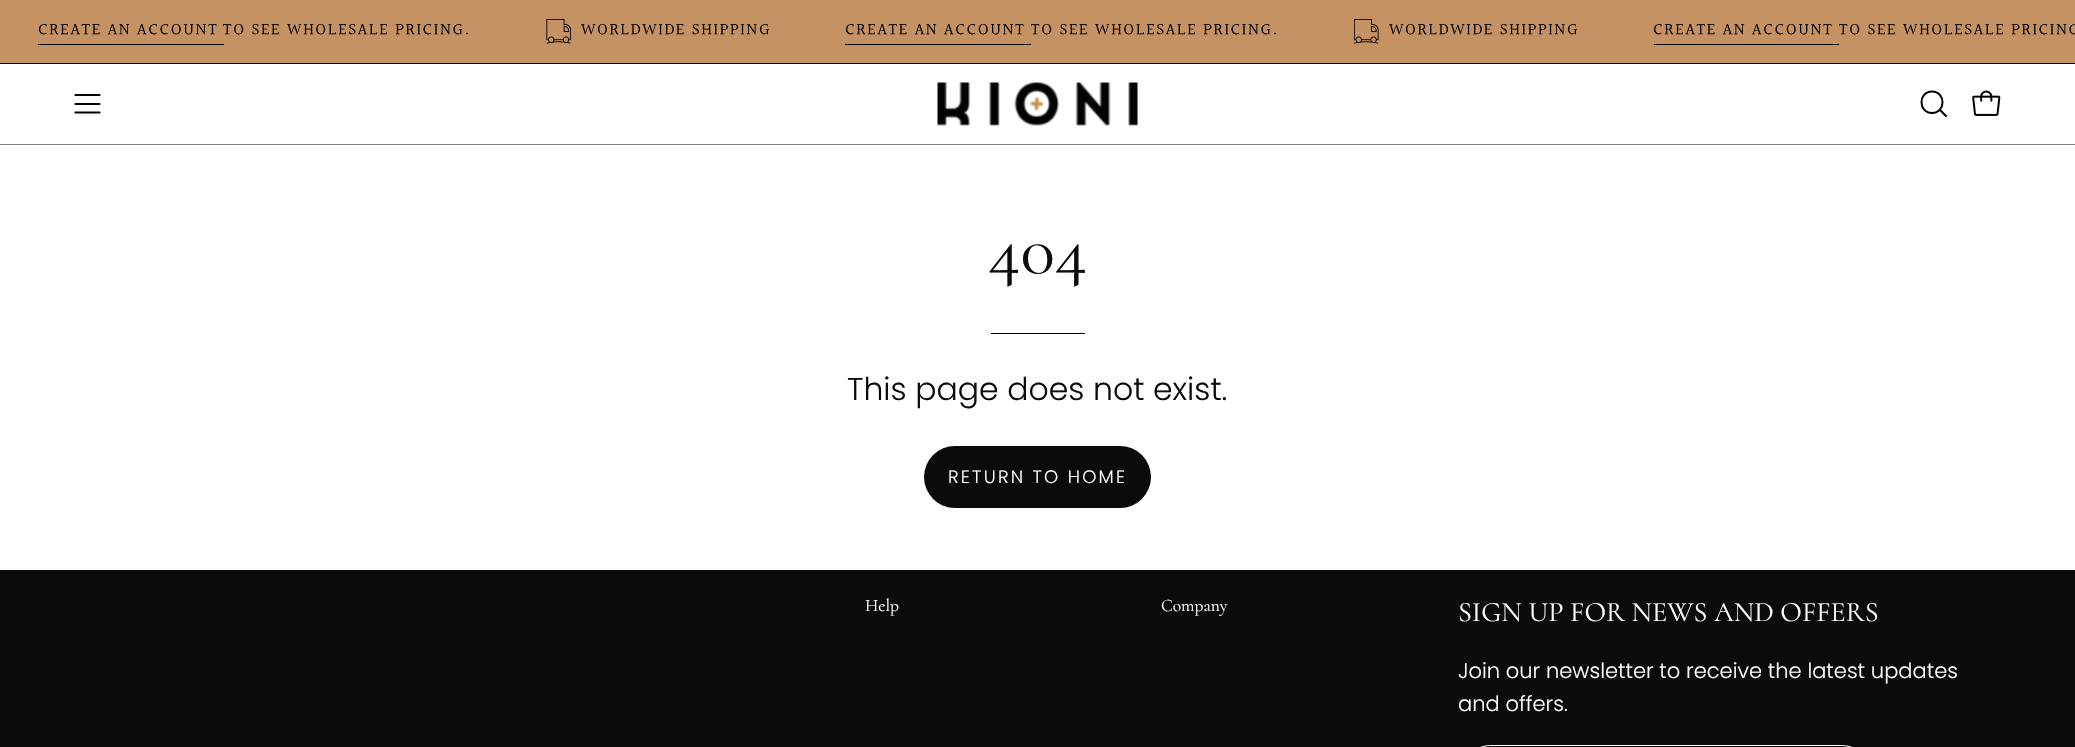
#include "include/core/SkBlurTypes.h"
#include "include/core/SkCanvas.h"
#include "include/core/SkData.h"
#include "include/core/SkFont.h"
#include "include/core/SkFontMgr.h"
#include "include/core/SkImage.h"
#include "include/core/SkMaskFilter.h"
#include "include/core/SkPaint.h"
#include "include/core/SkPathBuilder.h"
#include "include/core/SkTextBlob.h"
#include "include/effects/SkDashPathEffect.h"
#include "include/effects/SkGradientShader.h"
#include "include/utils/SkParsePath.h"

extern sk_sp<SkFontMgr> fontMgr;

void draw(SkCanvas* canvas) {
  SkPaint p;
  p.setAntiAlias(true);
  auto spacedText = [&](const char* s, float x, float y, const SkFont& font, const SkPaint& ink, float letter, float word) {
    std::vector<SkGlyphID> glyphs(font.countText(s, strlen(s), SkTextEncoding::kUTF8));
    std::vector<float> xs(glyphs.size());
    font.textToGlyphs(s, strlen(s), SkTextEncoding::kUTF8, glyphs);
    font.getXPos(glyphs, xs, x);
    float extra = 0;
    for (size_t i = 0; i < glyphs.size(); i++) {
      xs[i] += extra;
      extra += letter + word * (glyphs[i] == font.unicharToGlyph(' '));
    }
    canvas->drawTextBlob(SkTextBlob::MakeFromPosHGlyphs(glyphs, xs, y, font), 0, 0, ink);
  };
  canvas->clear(SK_ColorWHITE);
  p.setColor(SkColorSetRGB(197, 146, 100));
  canvas->drawRect(SkRect::MakeLTRB(0, 0, 2075, 63), p);
  p.setColor(SK_ColorBLACK);
  canvas->drawRect(SkRect::MakeLTRB(0, 63, 2075, 64), p);
  canvas->drawRect(SkRect::MakeLTRB(38, 44, 224, 45), p);
  canvas->drawImageRect(SkImages::DeferredFromEncodedData(SkData::MakeFromFileName("images/1.png")), SkRect::MakeLTRB(546, 19, 571, 44), SkSamplingOptions());
  canvas->drawRect(SkRect::MakeLTRB(845, 44, 1031, 45), p);
  canvas->drawImageRect(SkImages::DeferredFromEncodedData(SkData::MakeFromFileName("images/2.png")), SkRect::MakeLTRB(1354, 19, 1379, 44), SkSamplingOptions());
  canvas->drawRect(SkRect::MakeLTRB(1654, 44, 1839, 45), p);
  p.setStyle(SkPaint::kStroke_Style);
  p.setStrokeWidth(2.2f);
  p.setStrokeCap(SkPaint::kRound_Cap);
  p.setStrokeJoin(SkPaint::kRound_Join);
  canvas->drawPath(SkPathBuilder().moveTo(75.5f, 104).lineTo(99.5f, 104).moveTo(75.5f, 95).lineTo(99.5f, 95).moveTo(75.5f, 112.5f).lineTo(99.5f, 112.5f).detach(), p);
  canvas->drawImageRect(SkImages::DeferredFromEncodedData(SkData::MakeFromFileName("images/3.png")), SkRect::MakeLTRB(937, 82, 1138, 126), SkSamplingOptions());
  p.setStrokeWidth(2);
  canvas->drawPath(SkPathBuilder().moveTo(1932, 113).cubicTo(1946, 113, 1946, 91.5f, 1932, 91.5f).cubicTo(1918, 91.5f, 1918, 113, 1932, 113).close().moveTo(1940, 110).lineTo(1946, 116).detach(), p);
  canvas->drawImageRect(SkImages::DeferredFromEncodedData(SkData::MakeFromFileName("images/4.png")), SkRect::MakeLTRB(1972, 90, 2001, 116), SkSamplingOptions());
  p.setStyle(SkPaint::kFill_Style);
  p.setColor(SkColorSetRGB(128, 128, 128));
  canvas->drawRect(SkRect::MakeLTRB(0, 144, 2075, 145), p);
  p.setColor(SK_ColorBLACK);
  canvas->drawRect(SkRect::MakeLTRB(991, 333, 1085, 334), p);
  p.setColor(SkColorSetRGB(11, 11, 11));
  canvas->drawRoundRect(SkRect::MakeLTRB(924, 446, 1151, 508), 31, 31, p);
  canvas->drawRect(SkRect::MakeLTRB(0, 570, 2075, 747), p);
  p.setColor(SK_ColorWHITE);
  canvas->drawPath(SkPathBuilder(SkPathFillType::kEvenOdd).moveTo(1491, 745).lineTo(1808, 745).lineTo(1808, 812).lineTo(1491, 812).cubicTo(1473, 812, 1458, 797, 1458, 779).cubicTo(1458, 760, 1473, 745, 1491, 745).close().moveTo(1491, 746).lineTo(1808, 746).lineTo(1808, 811).lineTo(1491, 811).cubicTo(1473, 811, 1459, 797, 1459, 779).cubicTo(1459, 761, 1473, 746, 1491, 746).close().detach(), p);
  canvas->drawPath(SkPathBuilder(SkPathFillType::kEvenOdd).moveTo(1808, 745).lineTo(1841, 745).cubicTo(1860, 745, 1875, 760, 1875, 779).cubicTo(1875, 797, 1860, 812, 1841, 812).lineTo(1808, 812).close().moveTo(1808, 746).lineTo(1841, 746).cubicTo(1859, 746, 1874, 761, 1874, 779).cubicTo(1874, 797, 1859, 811, 1841, 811).lineTo(1808, 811).close().detach(), p);
  SkFont font1(fontMgr->matchFamilyStyle("Halant", SkFontStyle::Normal()), 16.5f);
  font1.setSubpixel(true);
  p.setColor(SK_ColorBLACK);
  spacedText("CREATE AN ACCOUNT", 38, 35, font1, p, 1.65f, 0);
  spacedText("TO SEE WHOLESALE PRICING.", 223, 35, font1, p, 1.65f, 0);
  spacedText("WORLDWIDE SHIPPING", 581, 35, font1, p, 1.65f, 0);
  spacedText("CREATE AN ACCOUNT", 845, 35, font1, p, 1.65f, 0);
  spacedText("TO SEE WHOLESALE PRICING.", 1031, 35, font1, p, 1.65f, 0);
  spacedText("WORLDWIDE SHIPPING", 1389, 35, font1, p, 1.65f, 0);
  spacedText("CREATE AN ACCOUNT", 1653, 35, font1, p, 1.65f, 0);
  spacedText("TO SEE WHOLESALE PRICING", 1839, 35, font1, p, 1.65f, 0);
  SkFont font2(fontMgr->matchFamilyStyle("Cormorant", SkFontStyle::Normal()), 72);
  font2.setSubpixel(true);
  p.setColor(SkColorSetRGB(11, 11, 11));
  canvas->drawString("404", 988, 273, font2, p);
  SkFont font3(fontMgr->matchFamilyStyle("Poppins", SkFontStyle(300, SkFontStyle::kNormal_Width, SkFontStyle::kUpright_Slant)), 31.5f);
  font3.setSubpixel(true);
  canvas->drawString("This page does not exist.", 847, 400, font3, p);
  SkFont font4(fontMgr->matchFamilyStyle("Poppins", SkFontStyle(300, SkFontStyle::kNormal_Width, SkFontStyle::kUpright_Slant)), 18);
  font4.setSubpixel(true);
  p.setColor(SK_ColorWHITE);
  spacedText("RETURN TO HOME", 948, 483, font4, p, 2.25f, 0);
  SkFont font5(fontMgr->matchFamilyStyle("Cormorant", SkFontStyle::Normal()), 17.5f);
  font5.setSubpixel(true);
  canvas->drawString("Help", 865, 611, font5, p);
  canvas->drawString("Company", 1161, 611, font5, p);
  SkFont font6(fontMgr->matchFamilyStyle("Cormorant", SkFontStyle::Normal()), 28.2f);
  font6.setSubpixel(true);
  canvas->drawString("SIGN UP FOR NEWS AND OFFERS", 1458, 621, font6, p);
  SkFont font7(fontMgr->matchFamilyStyle("Poppins", SkFontStyle(300, SkFontStyle::kNormal_Width, SkFontStyle::kUpright_Slant)), 21);
  font7.setSubpixel(true);
  canvas->drawString("Join our newsletter to receive the latest updates", 1458, 678, font7, p);
  canvas->drawString("and offers.", 1458, 711, font7, p);
}
